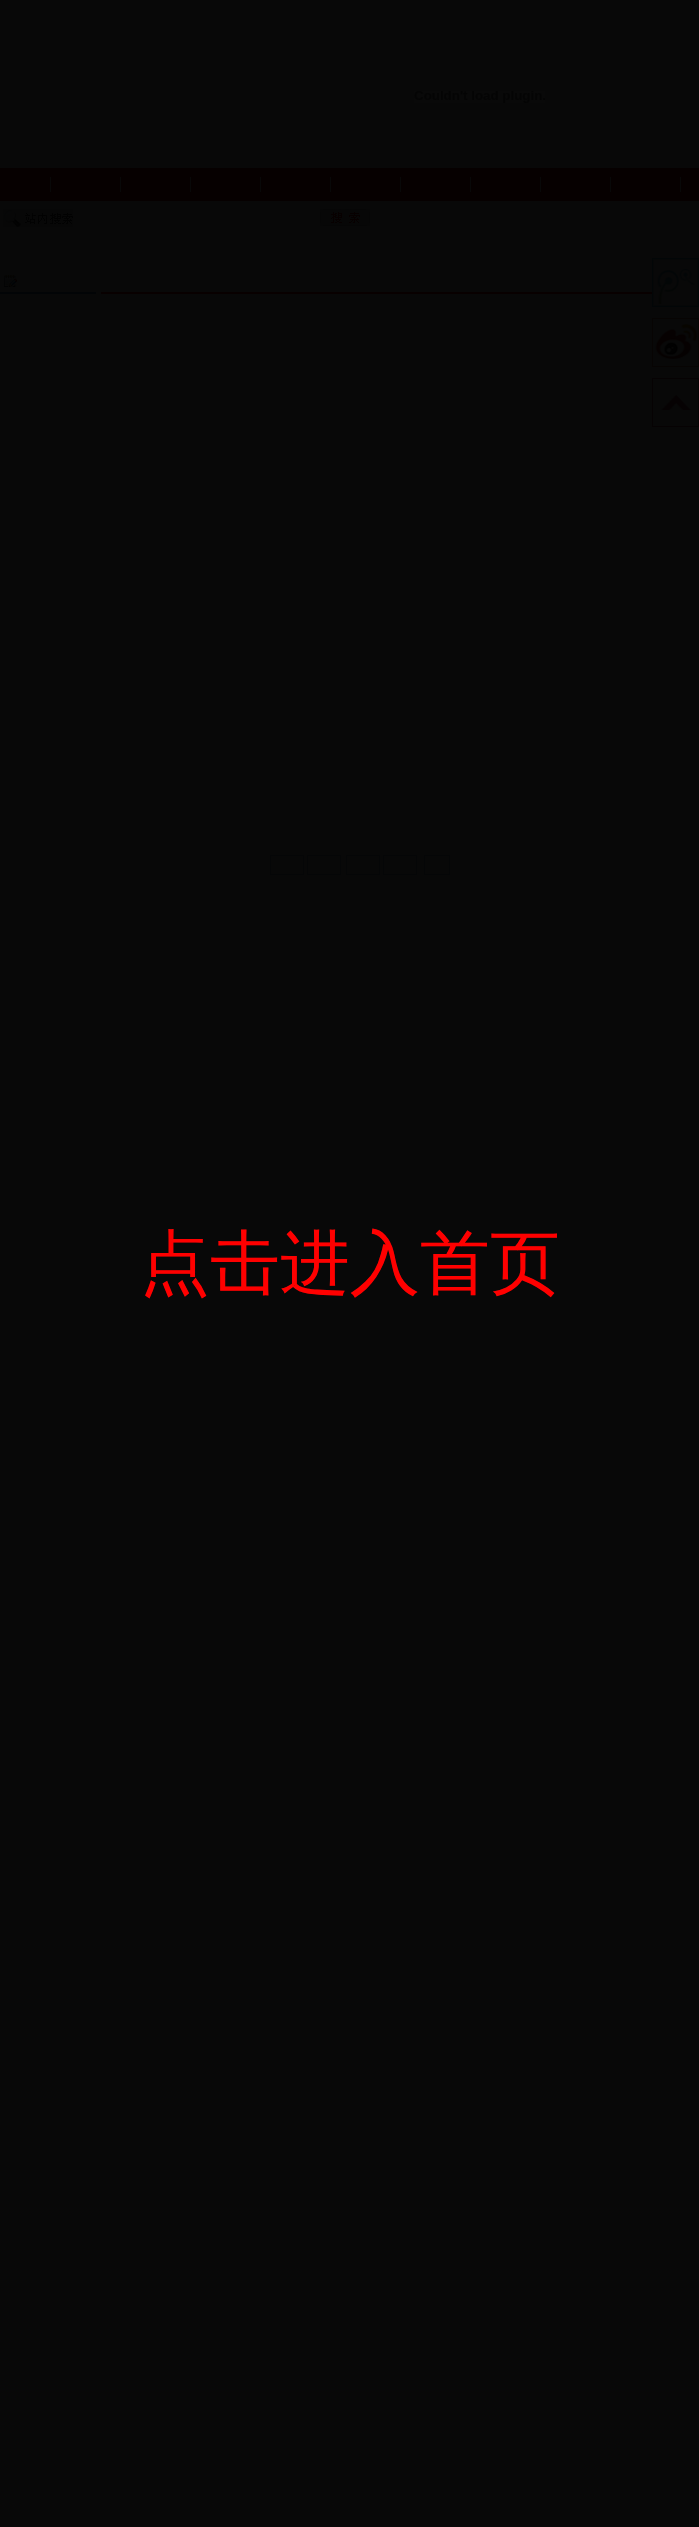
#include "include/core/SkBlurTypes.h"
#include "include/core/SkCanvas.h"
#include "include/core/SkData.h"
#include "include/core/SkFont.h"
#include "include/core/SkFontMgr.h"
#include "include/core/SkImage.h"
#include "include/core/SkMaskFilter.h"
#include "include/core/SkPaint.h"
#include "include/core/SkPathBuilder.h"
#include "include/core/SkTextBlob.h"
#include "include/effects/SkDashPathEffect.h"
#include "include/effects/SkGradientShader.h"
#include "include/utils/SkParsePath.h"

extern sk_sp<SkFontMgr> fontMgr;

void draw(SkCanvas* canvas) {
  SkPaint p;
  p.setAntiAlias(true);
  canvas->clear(SkColorSetRGB(8, 8, 8));
  canvas->drawImageRect(SkImages::DeferredFromEncodedData(SkData::MakeFromFileName("images/1.png")), SkRect::MakeLTRB(414, 91, 545, 103), SkSamplingOptions());
  p.setColor(SkColorSetRGB(6, 0, 0));
  canvas->drawRect(SkRect::MakeLTRB(0, 168, 699, 201), p);
  p.setColor(SkColorSetRGB(8, 8, 8));
  canvas->drawRect(SkRect::MakeLTRB(50, 177, 51, 192), p);
  canvas->drawRect(SkRect::MakeLTRB(120, 177, 121, 192), p);
  canvas->drawRect(SkRect::MakeLTRB(190, 177, 191, 192), p);
  canvas->drawRect(SkRect::MakeLTRB(260, 177, 261, 192), p);
  canvas->drawRect(SkRect::MakeLTRB(330, 177, 331, 192), p);
  canvas->drawRect(SkRect::MakeLTRB(400, 177, 401, 192), p);
  canvas->drawRect(SkRect::MakeLTRB(470, 177, 471, 192), p);
  canvas->drawRect(SkRect::MakeLTRB(540, 177, 541, 192), p);
  canvas->drawRect(SkRect::MakeLTRB(610, 177, 611, 192), p);
  canvas->drawRect(SkRect::MakeLTRB(680, 177, 681, 192), p);
  canvas->drawImageRect(SkImages::DeferredFromEncodedData(SkData::MakeFromFileName("images/2.png")), SkRect::MakeLTRB(3, 209, 73, 227), SkSamplingOptions());
  canvas->drawImageRect(SkImages::DeferredFromEncodedData(SkData::MakeFromFileName("images/3.png")), SkRect::MakeLTRB(320, 209, 370, 226), SkSamplingOptions());
  p.setColor(SkColorSetRGB(8, 0, 0));
  canvas->drawRect(SkRect::MakeLTRB(101, 292, 652, 294), p);
  canvas->drawImageRect(SkImages::DeferredFromEncodedData(SkData::MakeFromFileName("images/4.png")), SkRect::MakeLTRB(4, 275, 17, 287), SkSamplingOptions());
  p.setColor(SkColorSetRGB(2, 4, 6));
  canvas->drawRect(SkRect::MakeLTRB(0, 292, 96, 294), p);
  p.setStyle(SkPaint::kStroke_Style);
  p.setStrokeWidth(1);
  p.setColor(SkColorSetRGB(5, 6, 7));
  canvas->drawRect(SkRect::MakeLTRB(270.5f, 855.5f, 303.5f, 874.5f), p);
  canvas->drawRect(SkRect::MakeLTRB(307.5f, 855.5f, 340.5f, 874.5f), p);
  canvas->drawRect(SkRect::MakeLTRB(346.5f, 855.5f, 379.5f, 874.5f), p);
  canvas->drawRect(SkRect::MakeLTRB(383.5f, 855.5f, 416.5f, 874.5f), p);
  canvas->drawRect(SkRect::MakeLTRB(424.5f, 855.5f, 449.5f, 874.5f), p);
  canvas->drawImageRect(SkImages::DeferredFromEncodedData(SkData::MakeFromFileName("images/5.png")), SkRect::MakeLTRB(652, 258, 699, 307), SkSamplingOptions());
  canvas->drawImageRect(SkImages::DeferredFromEncodedData(SkData::MakeFromFileName("images/6.png")), SkRect::MakeLTRB(652, 318, 699, 367), SkSamplingOptions());
  canvas->drawImageRect(SkImages::DeferredFromEncodedData(SkData::MakeFromFileName("images/7.png")), SkRect::MakeLTRB(652, 378, 699, 427), SkSamplingOptions());
  SkFont font1(fontMgr->matchFamilyStyle("WenQuanYi Zen Hei", SkFontStyle(500, SkFontStyle::kNormal_Width, SkFontStyle::kUpright_Slant)), 70);
  font1.setSubpixel(true);
  p.setStyle(SkPaint::kFill_Style);
  p.setColor(SkColorSetRGB(255, 0, 0));
  canvas->drawString("点击进入首页", 140, 1287, font1, p);
}
